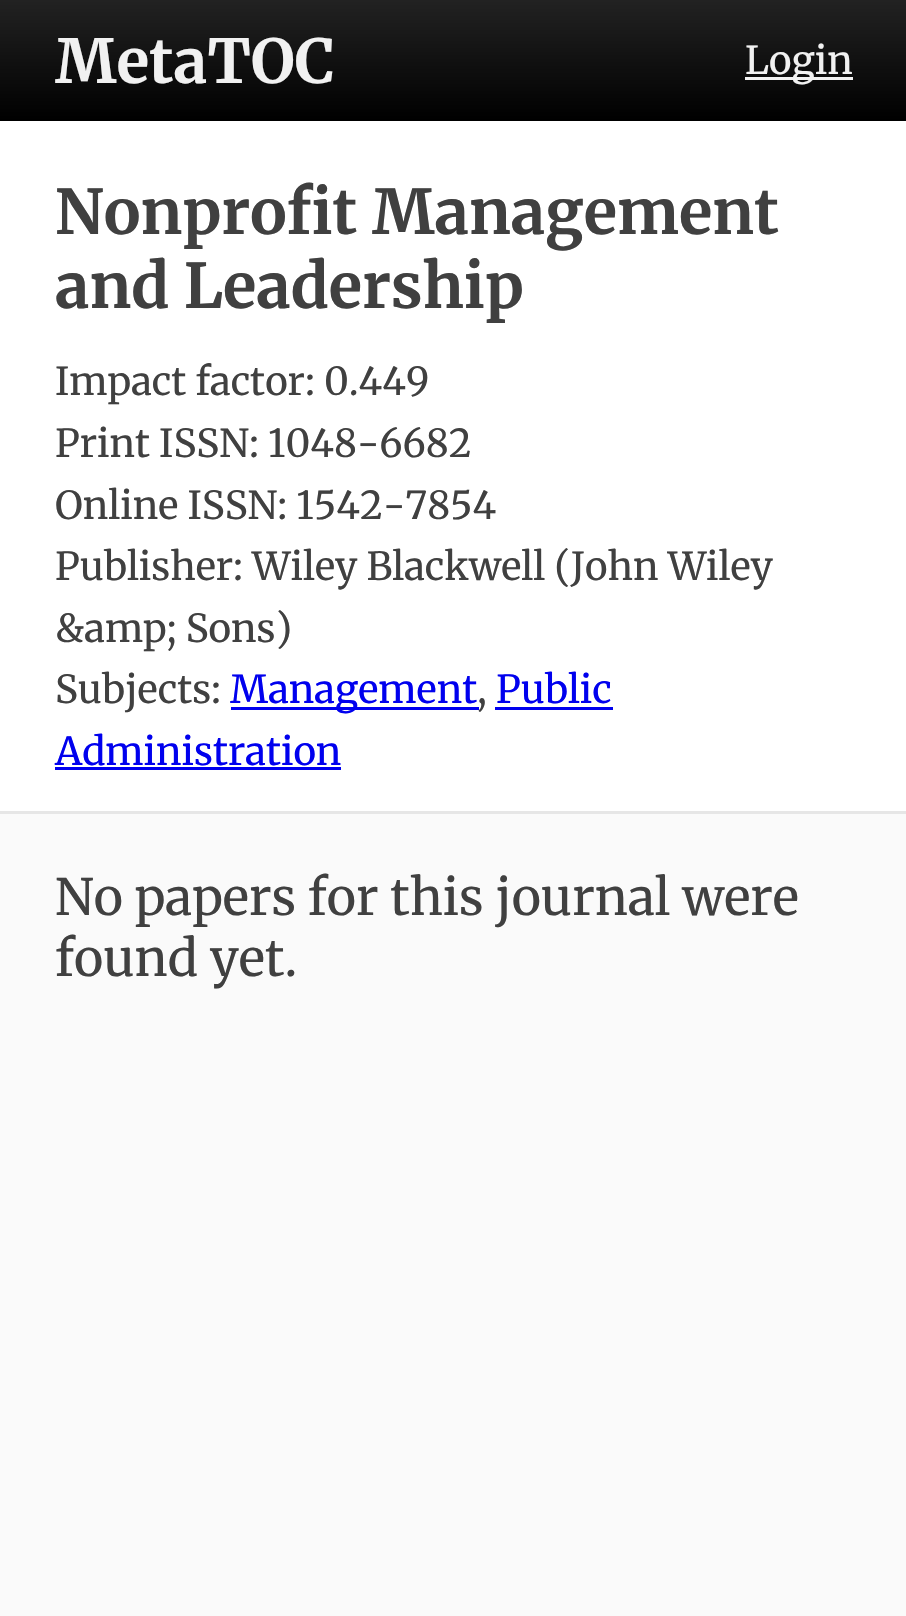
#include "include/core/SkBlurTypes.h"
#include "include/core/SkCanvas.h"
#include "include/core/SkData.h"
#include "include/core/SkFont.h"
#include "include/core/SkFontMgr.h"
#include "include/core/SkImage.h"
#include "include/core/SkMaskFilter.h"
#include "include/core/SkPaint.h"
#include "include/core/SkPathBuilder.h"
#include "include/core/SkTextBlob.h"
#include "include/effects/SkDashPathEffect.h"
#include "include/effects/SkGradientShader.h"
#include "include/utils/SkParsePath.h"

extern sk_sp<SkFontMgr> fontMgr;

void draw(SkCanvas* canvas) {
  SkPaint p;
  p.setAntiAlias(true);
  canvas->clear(SkColorSetRGB(250, 250, 250));
  {
    const SkColor colors[] = {SkColorSetRGB(34, 34, 34), SK_ColorBLACK};
    const float stops[] = {0, 1};
    const SkPoint ends[] = {{454, 0}, {454, 121}};
    p.setShader(SkGradientShader::MakeLinear(ends, colors, stops, 2, SkTileMode::kClamp));
    p.setAlpha(255);
  }
  canvas->drawRect(SkRect::MakeLTRB(0, 0, 906, 121), p);
  p.setShader(nullptr);
  p.setColor(SkColorSetRGB(241, 241, 241));
  canvas->drawRect(SkRect::MakeLTRB(745, 77, 853, 80), p);
  p.setColor(SK_ColorWHITE);
  canvas->drawRect(SkRect::MakeLTRB(0, 121, 906, 811), p);
  p.setColor(SkColorSetRGB(230, 230, 230));
  canvas->drawRect(SkRect::MakeLTRB(0, 811, 906, 814), p);
  p.setColor(SkColorSetRGB(0, 0, 238));
  canvas->drawRect(SkRect::MakeLTRB(231, 707, 479, 710), p);
  canvas->drawRect(SkRect::MakeLTRB(495, 707, 613, 710), p);
  canvas->drawRect(SkRect::MakeLTRB(55, 767, 341, 770), p);
  SkFont font1(fontMgr->matchFamilyStyle("Merriweather", SkFontStyle::Bold()), 60.5f);
  font1.setSubpixel(true);
  p.setColor(SkColorSetRGB(241, 241, 241));
  canvas->drawString("MetaTOC", 55, 83, font1, p);
  SkFont font2(fontMgr->matchFamilyStyle("Merriweather", SkFontStyle::Normal()), 38.5f);
  font2.setSubpixel(true);
  canvas->drawString("Login", 745, 74, font2, p);
  SkFont font3(fontMgr->matchFamilyStyle("Merriweather", SkFontStyle::Bold()), 61.6f);
  font3.setSubpixel(true);
  p.setColor(SkColorSetRGB(64, 64, 64));
  canvas->drawString("Nonprofit Management", 55, 234, font3, p);
  canvas->drawString("and Leadership", 55, 308, font3, p);
  canvas->drawString("Impact factor: 0.449", 55, 395, font2, p);
  canvas->drawString("Print ISSN: 1048-6682", 55, 457, font2, p);
  canvas->drawString("Online ISSN: 1542-7854", 55, 519, font2, p);
  canvas->drawString("Publisher: Wiley Blackwell (John Wiley", 55, 580, font2, p);
  canvas->drawString("&amp; Sons)", 55, 642, font2, p);
  canvas->drawString("Subjects:", 55, 703, font2, p);
  p.setColor(SkColorSetRGB(0, 0, 238));
  canvas->drawString("Management", 230, 703, font2, p);
  p.setColor(SkColorSetRGB(64, 64, 64));
  canvas->drawString(",", 477, 703, font2, p);
  p.setColor(SkColorSetRGB(0, 0, 238));
  canvas->drawString("Public", 496, 703, font2, p);
  canvas->drawString("Administration", 55, 765, font2, p);
  SkFont font4(fontMgr->matchFamilyStyle("Merriweather", SkFontStyle::Normal()), 50);
  font4.setSubpixel(true);
  p.setColor(SkColorSetRGB(64, 64, 64));
  canvas->drawString("No papers for this journal were", 55, 915, font4, p);
  canvas->drawString("found yet.", 55, 976, font4, p);
}
